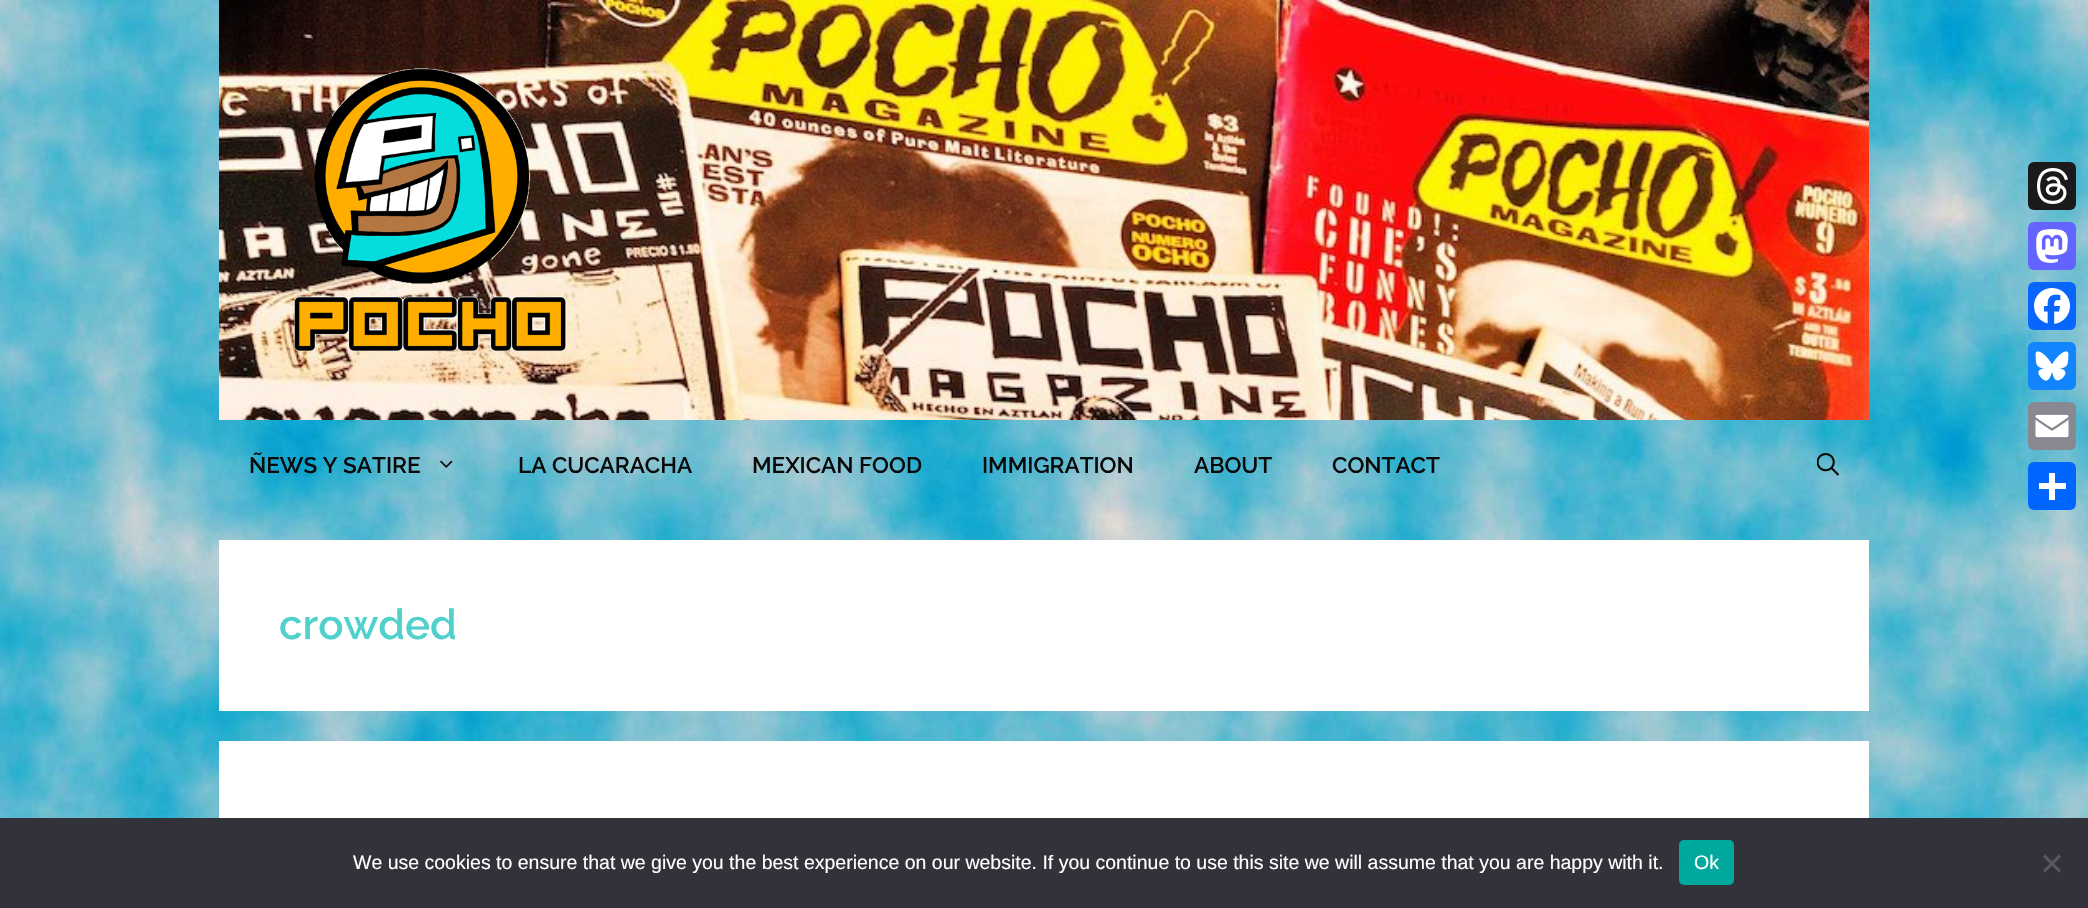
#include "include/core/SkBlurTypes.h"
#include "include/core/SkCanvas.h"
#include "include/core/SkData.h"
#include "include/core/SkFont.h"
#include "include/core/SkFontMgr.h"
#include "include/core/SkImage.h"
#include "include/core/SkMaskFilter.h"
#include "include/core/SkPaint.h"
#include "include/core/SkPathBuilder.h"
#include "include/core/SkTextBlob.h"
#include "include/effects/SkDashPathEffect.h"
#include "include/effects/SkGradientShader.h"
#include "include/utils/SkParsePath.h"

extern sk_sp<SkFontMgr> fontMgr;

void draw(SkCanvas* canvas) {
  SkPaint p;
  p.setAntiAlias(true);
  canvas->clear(SK_ColorWHITE);
  canvas->drawImageRect(SkImages::DeferredFromEncodedData(SkData::MakeFromFileName("images/1.png")), SkRect::MakeLTRB(0, 0, 2088, 818), SkSamplingOptions());
  canvas->drawImageRect(SkImages::DeferredFromEncodedData(SkData::MakeFromFileName("images/2.png")), SkRect::MakeLTRB(219, 0, 1869, 420), SkSamplingOptions());
  canvas->drawImageRect(SkImages::DeferredFromEncodedData(SkData::MakeFromFileName("images/3.png")), SkRect::MakeLTRB(294, 68, 567, 352), SkSamplingOptions());
  p.setColor(SkColorSetRGB(26, 26, 26));
  canvas->drawRoundRect(SkRect::MakeLTRB(2028, 162, 2076, 210), 6, 6, p);
  canvas->drawImageRect(SkImages::DeferredFromEncodedData(SkData::MakeFromFileName("images/4.png")), SkRect::MakeLTRB(2037, 168, 2068, 204), SkSamplingOptions());
  p.setColor(SkColorSetRGB(99, 100, 255));
  canvas->drawRoundRect(SkRect::MakeLTRB(2028, 222, 2076, 270), 6, 6, p);
  canvas->drawImageRect(SkImages::DeferredFromEncodedData(SkData::MakeFromFileName("images/5.png")), SkRect::MakeLTRB(2036, 229, 2068, 263), SkSamplingOptions());
  p.setColor(SkColorSetRGB(8, 102, 255));
  canvas->drawRoundRect(SkRect::MakeLTRB(2028, 282, 2076, 330), 6, 6, p);
  canvas->drawImageRect(SkImages::DeferredFromEncodedData(SkData::MakeFromFileName("images/6.png")), SkRect::MakeLTRB(2034, 288, 2070, 324), SkSamplingOptions());
  p.setColor(SkColorSetRGB(18, 133, 254));
  canvas->drawRoundRect(SkRect::MakeLTRB(2028, 342, 2076, 390), 6, 6, p);
  canvas->drawImageRect(SkImages::DeferredFromEncodedData(SkData::MakeFromFileName("images/7.png")), SkRect::MakeLTRB(2035, 351, 2069, 381), SkSamplingOptions());
  p.setColor(SkColorSetRGB(136, 137, 144));
  canvas->drawRoundRect(SkRect::MakeLTRB(2028, 402, 2076, 450), 6, 6, p);
  canvas->drawImageRect(SkImages::DeferredFromEncodedData(SkData::MakeFromFileName("images/8.png")), SkRect::MakeLTRB(2035, 414, 2069, 438), SkSamplingOptions());
  p.setColor(SkColorSetRGB(1, 102, 255));
  canvas->drawRoundRect(SkRect::MakeLTRB(2028, 462, 2076, 510), 6, 6, p);
  p.setColor(SK_ColorWHITE);
  canvas->drawRect(SkRect::MakeLTRB(2049, 473, 2055, 500), p);
  canvas->drawRect(SkRect::MakeLTRB(2039, 483, 2066, 489), p);
  canvas->drawImageRect(SkImages::DeferredFromEncodedData(SkData::MakeFromFileName("images/9.png")), SkRect::MakeLTRB(440, 460, 453, 468), SkSamplingOptions());
  canvas->drawImageRect(SkImages::DeferredFromEncodedData(SkData::MakeFromFileName("images/10.png")), SkRect::MakeLTRB(1817, 453, 1839, 476), SkSamplingOptions());
  canvas->drawRect(SkRect::MakeLTRB(219, 540, 1869, 711), p);
  canvas->drawRect(SkRect::MakeLTRB(219, 741, 1869, 818), p);
  p.setColor(SkColorSetRGB(50, 50, 58));
  canvas->drawRect(SkRect::MakeLTRB(0, 818, 2088, 908), p);
  p.setColor(SkColorSetRGB(0, 169, 157));
  canvas->drawRoundRect(SkRect::MakeLTRB(1679, 840, 1734, 885), 5, 5, p);
  p.setColor(SkColorSetRGB(89, 89, 93));
  canvas->drawPath(SkPathBuilder().moveTo(2059, 854.5f).lineTo(2061, 856.5f).lineTo(2045, 872.5f).lineTo(2043, 870.5f).close().detach(), p);
  canvas->drawPath(SkPathBuilder().moveTo(2043, 856.5f).lineTo(2045, 854.5f).lineTo(2061, 870.5f).lineTo(2059, 872.5f).close().detach(), p);
  SkFont font1(fontMgr->matchFamilyStyle("Raleway", SkFontStyle(600, SkFontStyle::kNormal_Width, SkFontStyle::kUpright_Slant)), 22.5f);
  font1.setSubpixel(true);
  p.setColor(SkColorSetRGB(10, 10, 10));
  canvas->drawString("ÑEWS Y SATIRE", 249, 473, font1, p);
  canvas->drawString("LA CUCARACHA", 518, 473, font1, p);
  canvas->drawString("MEXICAN FOOD", 752, 473, font1, p);
  canvas->drawString("IMMIGRATION", 982, 473, font1, p);
  canvas->drawString("ABOUT", 1194, 473, font1, p);
  canvas->drawString("CONTACT", 1332, 473, font1, p);
  SkFont font2(fontMgr->matchFamilyStyle("Raleway", SkFontStyle(600, SkFontStyle::kNormal_Width, SkFontStyle::kUpright_Slant)), 42);
  font2.setSubpixel(true);
  p.setColor(SkColorSetRGB(80, 209, 204));
  canvas->drawString("crowded", 279, 639, font2, p);
  SkFont font3(fontMgr->matchFamilyStyle("Liberation Sans", SkFontStyle::Normal()), 19.5f);
  font3.setSubpixel(true);
  p.setColor(SK_ColorWHITE);
  canvas->drawString("We use cookies to ensure that we give you the best experience on our website. If you continue to use this site we will assume that you are happy with it.", 353, 869, font3, p);
  canvas->drawString("Ok", 1694, 869, font3, p);
}
